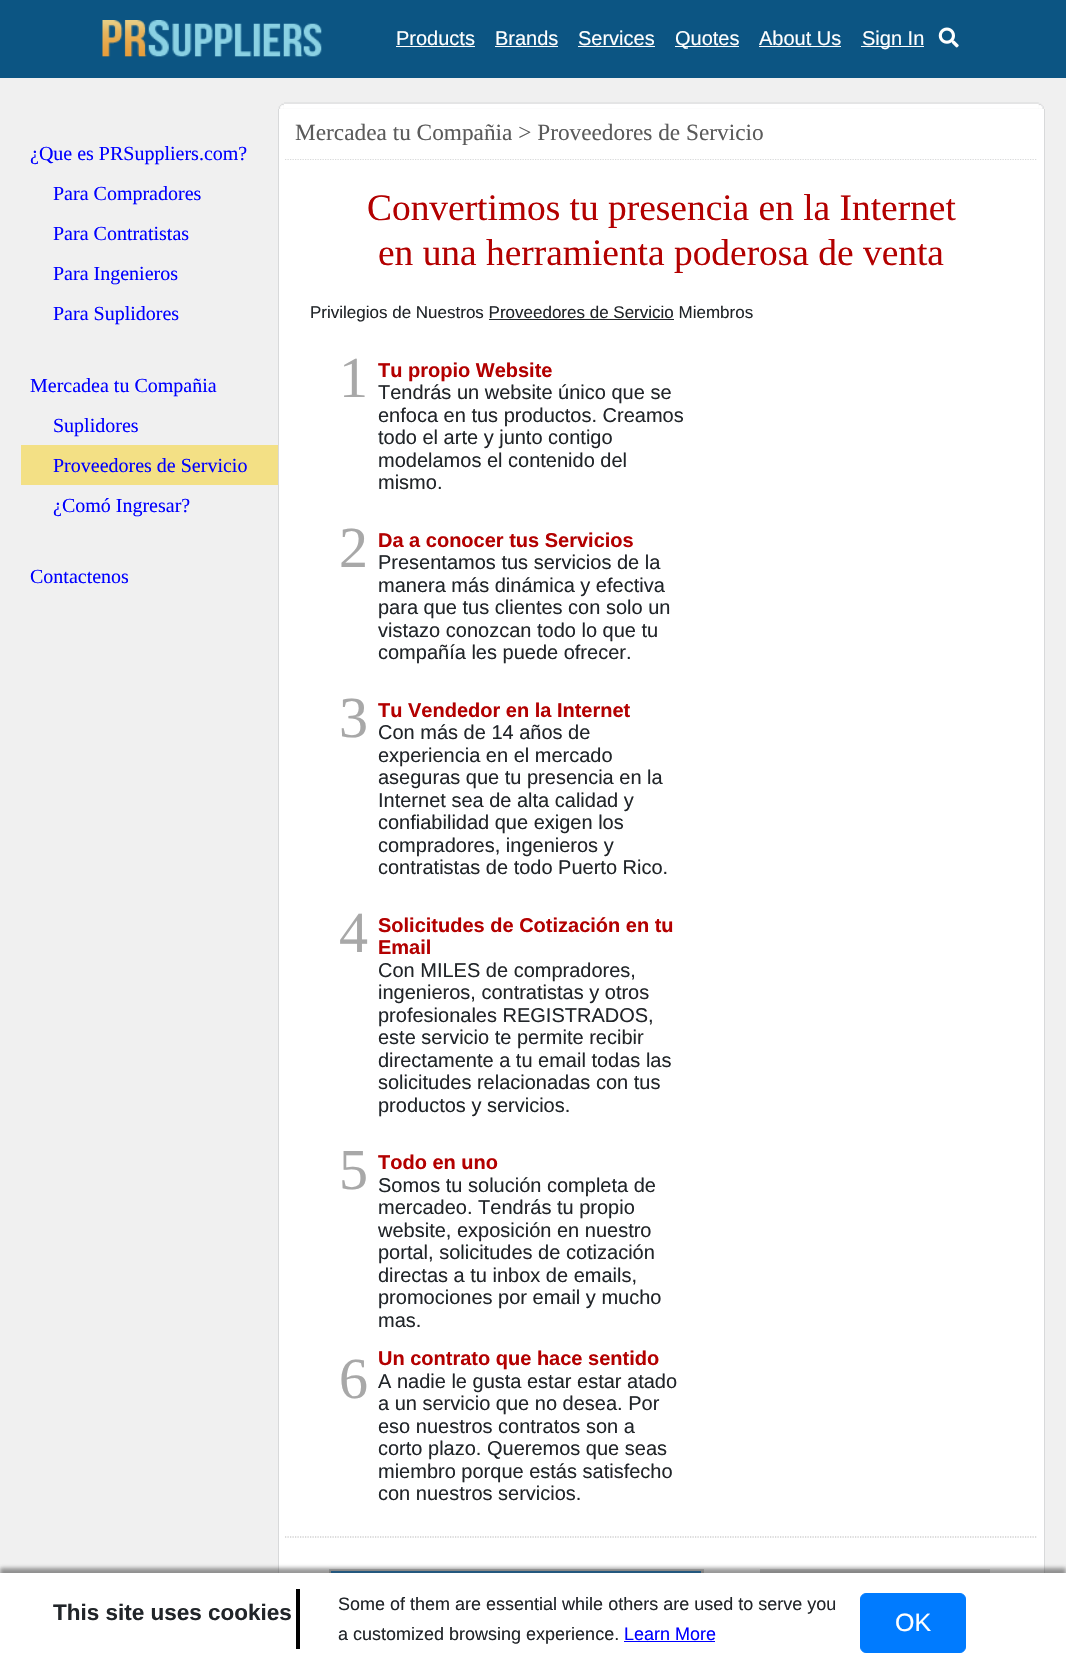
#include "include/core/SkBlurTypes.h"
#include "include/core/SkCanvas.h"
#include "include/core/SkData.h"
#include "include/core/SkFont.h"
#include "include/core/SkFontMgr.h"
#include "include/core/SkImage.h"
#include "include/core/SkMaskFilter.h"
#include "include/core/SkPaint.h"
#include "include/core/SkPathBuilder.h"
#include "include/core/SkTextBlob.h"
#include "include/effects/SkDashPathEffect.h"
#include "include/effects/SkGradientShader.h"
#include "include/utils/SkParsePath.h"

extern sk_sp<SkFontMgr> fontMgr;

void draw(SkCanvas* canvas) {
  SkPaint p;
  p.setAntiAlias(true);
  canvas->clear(SkColorSetRGB(240, 240, 240));
  p.setColor(SkColorSetRGB(12, 85, 131));
  canvas->drawRect(SkRect::MakeLTRB(0, 0, 1066, 78), p);
  canvas->drawImageRect(SkImages::DeferredFromEncodedData(SkData::MakeFromFileName("images/1.png")), SkRect::MakeLTRB(102, 20, 322, 57), SkSamplingOptions());
  p.setColor(SK_ColorWHITE);
  canvas->drawRect(SkRect::MakeLTRB(396, 46, 475, 47), p);
  canvas->drawRect(SkRect::MakeLTRB(495, 46, 558, 47), p);
  canvas->drawRect(SkRect::MakeLTRB(578, 46, 655, 47), p);
  canvas->drawRect(SkRect::MakeLTRB(675, 46, 739, 47), p);
  canvas->drawRect(SkRect::MakeLTRB(759, 46, 841, 47), p);
  canvas->drawRect(SkRect::MakeLTRB(861, 46, 924, 47), p);
  canvas->drawImageRect(SkImages::DeferredFromEncodedData(SkData::MakeFromFileName("images/2.png")), SkRect::MakeLTRB(938, 27, 959, 48), SkSamplingOptions());
  p.setColor(SkColorSetRGB(243, 224, 133));
  canvas->drawRect(SkRect::MakeLTRB(21, 445, 278, 485), p);
  canvas->drawImageRect(SkImages::DeferredFromEncodedData(SkData::MakeFromFileName("images/3.png")), SkRect::MakeLTRB(278, 103, 284, 109), SkSamplingOptions());
  canvas->drawImageRect(SkImages::DeferredFromEncodedData(SkData::MakeFromFileName("images/4.png")), SkRect::MakeLTRB(284, 102, 1039, 109), SkSamplingOptions());
  canvas->drawImageRect(SkImages::DeferredFromEncodedData(SkData::MakeFromFileName("images/5.png")), SkRect::MakeLTRB(1038, 103, 1044, 109), SkSamplingOptions());
  p.setColor(SK_ColorWHITE);
  canvas->drawRect(SkRect::MakeLTRB(279, 109, 1044, 1573), p);
  p.setColor(SkColorSetRGB(216, 217, 218));
  canvas->drawRect(SkRect::MakeLTRB(1044, 109, 1045, 1573), p);
  canvas->drawRect(SkRect::MakeLTRB(278, 109, 279, 1573), p);
  p.setStyle(SkPaint::kStroke_Style);
  p.setStrokeWidth(1.2f);
  p.setPathEffect(SkDashPathEffect::Make({{1.25f, 1.25f}}, 0));
  canvas->drawPath(SkPathBuilder().moveTo(285, 159.5f).lineTo(1037.5f, 159.5f).detach(), p);
  p.setPathEffect(nullptr);
  p.setColor(SkColorSetRGB(186, 186, 186));
  p.setPathEffect(SkDashPathEffect::Make({{1.25f, 1.25f}}, 0));
  canvas->drawPath(SkPathBuilder().moveTo(285, 1537).lineTo(1037.5f, 1537).detach(), p);
  p.setPathEffect(nullptr);
  p.setStyle(SkPaint::kFill_Style);
  p.setColor(SkColorSetRGB(33, 37, 41));
  canvas->drawRect(SkRect::MakeLTRB(489, 319, 674, 320), p);
  p.setStyle(SkPaint::kStroke_Style);
  p.setStrokeWidth(3);
  p.setColor(SkColorSetRGB(204, 204, 204));
  canvas->drawRect(SkRect::MakeLTRB(330.5f, 1570.5f, 702.5f, 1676.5f), p);
  p.setStrokeWidth(4);
  p.setColor(SkColorSetRGB(21, 124, 200));
  canvas->drawRect(SkRect::MakeLTRB(333, 1573, 699, 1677), p);
  p.setStyle(SkPaint::kFill_Style);
  p.setColor(SkColorSetRGB(219, 219, 219));
  canvas->drawRect(SkRect::MakeLTRB(760, 1569, 990, 1573), p);
  p.setColor(SkColorSetARGB(128, 50, 50, 50));
  p.setMaskFilter(SkMaskFilter::MakeBlur(kNormal_SkBlurStyle, 2));
  canvas->drawRect(SkRect::MakeLTRB(0, 1568, 1066, 1670), p);
  p.setMaskFilter(nullptr);
  p.setColor(SK_ColorWHITE);
  canvas->drawRect(SkRect::MakeLTRB(0, 1573, 1066, 1675), p);
  p.setColor(SK_ColorBLACK);
  canvas->drawRect(SkRect::MakeLTRB(296, 1589, 300, 1649), p);
  p.setColor(SkColorSetRGB(0, 0, 255));
  canvas->drawRect(SkRect::MakeLTRB(624, 1641, 715, 1642), p);
  p.setColor(SkColorSetRGB(0, 123, 255));
  canvas->drawRoundRect(SkRect::MakeLTRB(860.5f, 1593.5f, 965.5f, 1652.5f), 5.5f, 5.5f, p);
  p.setStyle(SkPaint::kStroke_Style);
  p.setStrokeWidth(1);
  canvas->drawRoundRect(SkRect::MakeLTRB(860.5f, 1593.5f, 965.5f, 1652.5f), 5.5f, 5.5f, p);
  SkFont font1(fontMgr->matchFamilyStyle("Liberation Sans", SkFontStyle::Normal()), 20);
  font1.setSubpixel(true);
  p.setStyle(SkPaint::kFill_Style);
  p.setColor(SK_ColorWHITE);
  canvas->drawString("Products", 396, 45, font1, p);
  canvas->drawString("Brands", 495, 45, font1, p);
  canvas->drawString("Services", 578, 45, font1, p);
  canvas->drawString("Quotes", 675, 45, font1, p);
  canvas->drawString("About Us", 759, 45, font1, p);
  canvas->drawString("Sign In", 862, 45, font1, p);
  SkFont font2(fontMgr->matchFamilyStyle("Liberation Serif", SkFontStyle::Normal()), 20);
  font2.setSubpixel(true);
  p.setColor(SkColorSetRGB(0, 0, 255));
  canvas->drawString("¿Que es PRSuppliers.com?", 30, 160, font2, p);
  canvas->drawString("Para Compradores", 53, 200, font2, p);
  canvas->drawString("Para Contratistas", 53, 240, font2, p);
  canvas->drawString("Para Ingenieros", 53, 280, font2, p);
  canvas->drawString("Para Suplidores", 53, 320, font2, p);
  canvas->drawString("Mercadea tu Compañia", 30, 392, font2, p);
  canvas->drawString("Suplidores", 53, 432, font2, p);
  canvas->drawString("Proveedores de Servicio", 53, 472, font2, p);
  canvas->drawString("¿Comó Ingresar?", 53, 512, font2, p);
  canvas->drawString("Contactenos", 30, 583, font2, p);
  SkFont font3(fontMgr->matchFamilyStyle("Liberation Serif", SkFontStyle::Normal()), 23.3f);
  font3.setSubpixel(true);
  p.setColor(SkColorSetRGB(91, 91, 91));
  canvas->drawString("Mercadea tu Compañia > Proveedores de Servicio", 295, 140, font3, p);
  SkFont font4(fontMgr->matchFamilyStyle("Liberation Serif", SkFontStyle::Normal()), 37.4f);
  font4.setSubpixel(true);
  p.setColor(SkColorSetRGB(179, 0, 0));
  canvas->drawString("Convertimos tu presencia en la Internet", 367, 220, font4, p);
  canvas->drawString("en una herramienta poderosa de venta", 378, 265, font4, p);
  SkFont font5(fontMgr->matchFamilyStyle("Liberation Sans", SkFontStyle::Normal()), 17);
  font5.setSubpixel(true);
  p.setColor(SkColorSetRGB(33, 37, 41));
  canvas->drawString("Privilegios de Nuestros Proveedores de Servicio Miembros", 310, 318, font5, p);
  SkFont font6(fontMgr->matchFamilyStyle("Liberation Serif", SkFontStyle::Normal()), 58);
  font6.setSubpixel(true);
  p.setColor(SkColorSetRGB(168, 168, 168));
  canvas->drawString("1", 339, 397, font6, p);
  SkFont font7(fontMgr->matchFamilyStyle("Liberation Sans", SkFontStyle::Bold()), 20);
  font7.setSubpixel(true);
  p.setColor(SkColorSetRGB(179, 0, 0));
  canvas->drawString("Tu propio Website", 378, 377, font7, p);
  p.setColor(SkColorSetRGB(33, 37, 41));
  canvas->drawString("Tendrás un website único que se", 378, 399, font1, p);
  canvas->drawString("enfoca en tus productos. Creamos", 378, 422, font1, p);
  canvas->drawString("todo el arte y junto contigo", 378, 444, font1, p);
  canvas->drawString("modelamos el contenido del", 378, 467, font1, p);
  canvas->drawString("mismo.", 378, 489, font1, p);
  p.setColor(SkColorSetRGB(168, 168, 168));
  canvas->drawString("2", 339, 567, font6, p);
  p.setColor(SkColorSetRGB(179, 0, 0));
  canvas->drawString("Da a conocer tus Servicios", 378, 547, font7, p);
  p.setColor(SkColorSetRGB(33, 37, 41));
  canvas->drawString("Presentamos tus servicios de la", 378, 569, font1, p);
  canvas->drawString("manera más dinámica y efectiva", 378, 592, font1, p);
  canvas->drawString("para que tus clientes con solo un", 378, 614, font1, p);
  canvas->drawString("vistazo conozcan todo lo que tu", 378, 637, font1, p);
  canvas->drawString("compañía les puede ofrecer.", 378, 659, font1, p);
  p.setColor(SkColorSetRGB(168, 168, 168));
  canvas->drawString("3", 339, 737, font6, p);
  p.setColor(SkColorSetRGB(179, 0, 0));
  canvas->drawString("Tu Vendedor en la Internet", 378, 717, font7, p);
  p.setColor(SkColorSetRGB(33, 37, 41));
  canvas->drawString("Con más de 14 años de", 378, 739, font1, p);
  canvas->drawString("experiencia en el mercado", 378, 762, font1, p);
  canvas->drawString("aseguras que tu presencia en la", 378, 784, font1, p);
  canvas->drawString("Internet sea de alta calidad y", 378, 807, font1, p);
  canvas->drawString("confiabilidad que exigen los", 378, 829, font1, p);
  canvas->drawString("compradores, ingenieros y", 378, 852, font1, p);
  canvas->drawString("contratistas de todo Puerto Rico.", 378, 874, font1, p);
  p.setColor(SkColorSetRGB(168, 168, 168));
  canvas->drawString("4", 339, 952, font6, p);
  p.setColor(SkColorSetRGB(179, 0, 0));
  canvas->drawString("Solicitudes de Cotización en tu", 378, 932, font7, p);
  canvas->drawString("Email", 378, 954, font7, p);
  p.setColor(SkColorSetRGB(33, 37, 41));
  canvas->drawString("Con MILES de compradores,", 378, 977, font1, p);
  canvas->drawString("ingenieros, contratistas y otros", 378, 999, font1, p);
  canvas->drawString("profesionales REGISTRADOS,", 378, 1022, font1, p);
  canvas->drawString("este servicio te permite recibir", 378, 1044, font1, p);
  canvas->drawString("directamente a tu email todas las", 378, 1067, font1, p);
  canvas->drawString("solicitudes relacionadas con tus", 378, 1089, font1, p);
  canvas->drawString("productos y servicios.", 378, 1112, font1, p);
  p.setColor(SkColorSetRGB(168, 168, 168));
  canvas->drawString("5", 339, 1189, font6, p);
  p.setColor(SkColorSetRGB(179, 0, 0));
  canvas->drawString("Todo en uno", 378, 1169, font7, p);
  p.setColor(SkColorSetRGB(33, 37, 41));
  canvas->drawString("Somos tu solución completa de", 378, 1192, font1, p);
  canvas->drawString("mercadeo. Tendrás tu propio", 378, 1214, font1, p);
  canvas->drawString("website, exposición en nuestro", 378, 1237, font1, p);
  canvas->drawString("portal, solicitudes de cotización", 378, 1259, font1, p);
  canvas->drawString("directas a tu inbox de emails,", 378, 1282, font1, p);
  canvas->drawString("promociones por email y mucho", 378, 1304, font1, p);
  canvas->drawString("mas.", 378, 1327, font1, p);
  p.setColor(SkColorSetRGB(168, 168, 168));
  canvas->drawString("6", 339, 1398, font6, p);
  p.setColor(SkColorSetRGB(179, 0, 0));
  canvas->drawString("Un contrato que hace sentido", 378, 1365, font7, p);
  p.setColor(SkColorSetRGB(33, 37, 41));
  canvas->drawString("A nadie le gusta estar estar atado", 378, 1388, font1, p);
  canvas->drawString("a un servicio que no desea. Por", 378, 1410, font1, p);
  canvas->drawString("eso nuestros contratos son a", 378, 1433, font1, p);
  canvas->drawString("corto plazo. Queremos que seas", 378, 1455, font1, p);
  canvas->drawString("miembro porque estás satisfecho", 378, 1478, font1, p);
  canvas->drawString("con nuestros servicios.", 378, 1500, font1, p);
  SkFont font8(fontMgr->matchFamilyStyle("Liberation Sans", SkFontStyle::Bold()), 22.5f);
  font8.setSubpixel(true);
  canvas->drawString("This site uses cookies", 53, 1620, font8, p);
  SkFont font9(fontMgr->matchFamilyStyle("Liberation Sans", SkFontStyle::Normal()), 18);
  font9.setSubpixel(true);
  canvas->drawString("Some of them are essential while others are used to serve you", 338, 1610, font9, p);
  canvas->drawString("a customized browsing experience.", 338, 1640, font9, p);
  p.setColor(SkColorSetRGB(0, 0, 255));
  canvas->drawString("Learn More", 624, 1640, font9, p);
  SkFont font10(fontMgr->matchFamilyStyle("Liberation Sans", SkFontStyle::Normal()), 25);
  font10.setSubpixel(true);
  p.setColor(SK_ColorWHITE);
  canvas->drawString("OK", 895, 1631, font10, p);
}
